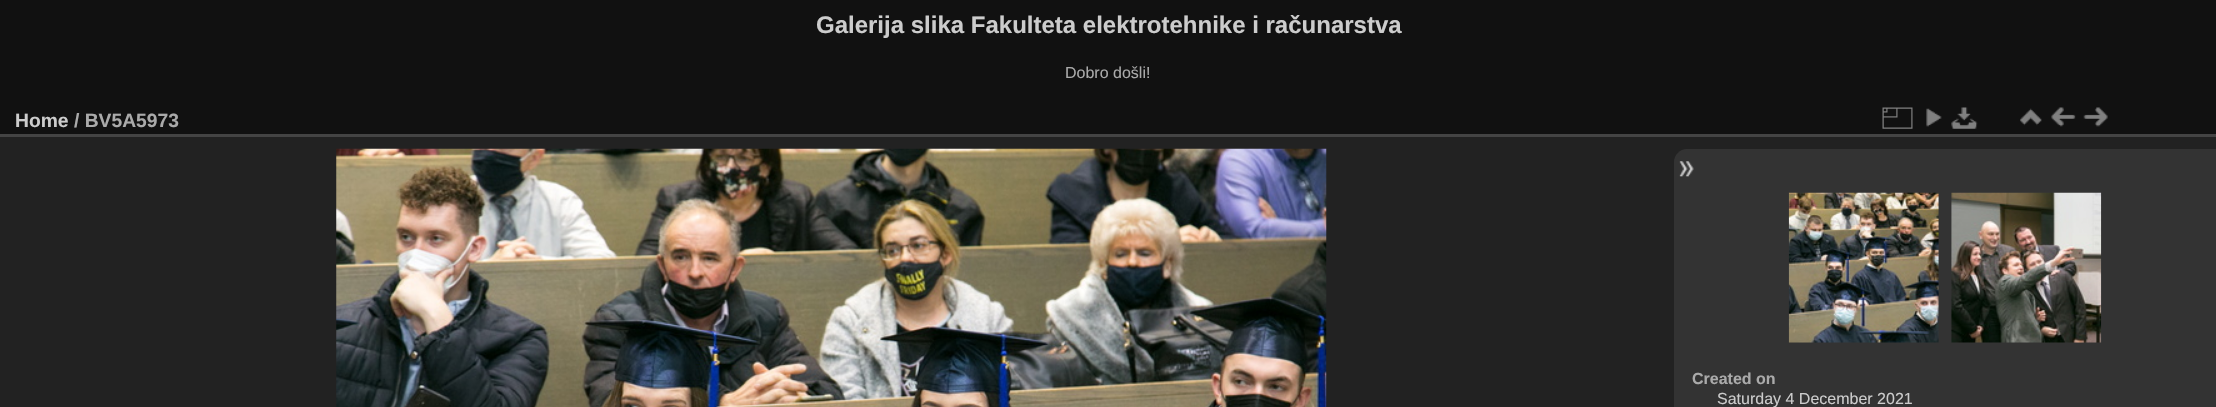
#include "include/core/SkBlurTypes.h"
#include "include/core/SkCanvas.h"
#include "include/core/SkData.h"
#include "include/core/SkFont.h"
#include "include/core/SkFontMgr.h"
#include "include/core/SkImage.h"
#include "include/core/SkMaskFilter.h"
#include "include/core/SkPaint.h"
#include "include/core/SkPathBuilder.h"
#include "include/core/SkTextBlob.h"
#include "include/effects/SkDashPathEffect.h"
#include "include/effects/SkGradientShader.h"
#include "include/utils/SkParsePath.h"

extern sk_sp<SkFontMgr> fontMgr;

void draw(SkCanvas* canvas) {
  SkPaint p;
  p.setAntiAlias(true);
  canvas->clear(SkColorSetRGB(17, 17, 17));
  p.setColor(SkColorSetRGB(34, 34, 34));
  canvas->drawRect(SkRect::MakeLTRB(0, 137, 2216, 407), p);
  p.setColor(SkColorSetRGB(68, 68, 68));
  canvas->drawRect(SkRect::MakeLTRB(0, 134, 2216, 137), p);
  canvas->drawImageRect(SkImages::DeferredFromEncodedData(SkData::MakeFromFileName("images/1.png")), SkRect::MakeLTRB(1882, 107, 1913, 129), SkSamplingOptions());
  canvas->drawImageRect(SkImages::DeferredFromEncodedData(SkData::MakeFromFileName("images/2.png")), SkRect::MakeLTRB(1926, 108, 1942, 127), SkSamplingOptions());
  canvas->drawImageRect(SkImages::DeferredFromEncodedData(SkData::MakeFromFileName("images/3.png")), SkRect::MakeLTRB(1951, 107, 1978, 129), SkSamplingOptions());
  canvas->drawImageRect(SkImages::DeferredFromEncodedData(SkData::MakeFromFileName("images/4.png")), SkRect::MakeLTRB(2020, 108, 2042, 126), SkSamplingOptions());
  canvas->drawImageRect(SkImages::DeferredFromEncodedData(SkData::MakeFromFileName("images/5.png")), SkRect::MakeLTRB(2051, 107, 2076, 127), SkSamplingOptions());
  canvas->drawImageRect(SkImages::DeferredFromEncodedData(SkData::MakeFromFileName("images/6.png")), SkRect::MakeLTRB(2083, 107, 2108, 127), SkSamplingOptions());
  canvas->drawImageRect(SkImages::DeferredFromEncodedData(SkData::MakeFromFileName("images/7.png")), SkRect::MakeLTRB(336, 148, 1327, 407), SkSamplingOptions());
  p.setColor(SkColorSetRGB(51, 51, 51));
  canvas->drawPath(SkPathBuilder().moveTo(1687, 149).lineTo(2216, 149).lineTo(2216, 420).lineTo(1687, 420).cubicTo(1680, 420, 1674, 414, 1674, 407).lineTo(1674, 162).cubicTo(1674, 155, 1680, 149, 1687, 149).close().detach(), p);
  canvas->drawImageRect(SkImages::DeferredFromEncodedData(SkData::MakeFromFileName("images/8.png")), SkRect::MakeLTRB(1679, 161, 1694, 177), SkSamplingOptions());
  canvas->drawImageRect(SkImages::DeferredFromEncodedData(SkData::MakeFromFileName("images/9.png")), SkRect::MakeLTRB(1788, 192, 1939, 343), SkSamplingOptions());
  canvas->drawImageRect(SkImages::DeferredFromEncodedData(SkData::MakeFromFileName("images/10.png")), SkRect::MakeLTRB(1951, 192, 2102, 343), SkSamplingOptions());
  SkFont font1(fontMgr->matchFamilyStyle("Liberation Sans", SkFontStyle::Bold()), 24);
  font1.setSubpixel(true);
  p.setColor(SkColorSetRGB(204, 204, 204));
  canvas->drawString("Galerija slika Fakulteta elektrotehnike i računarstva", 816, 33, font1, p);
  SkFont font2(fontMgr->matchFamilyStyle("Liberation Sans", SkFontStyle::Normal()), 16);
  font2.setSubpixel(true);
  p.setColor(SkColorSetRGB(170, 170, 170));
  canvas->drawString("Dobro došli!", 1065, 78, font2, p);
  SkFont font3(fontMgr->matchFamilyStyle("Liberation Sans", SkFontStyle::Bold()), 19.25f);
  font3.setSubpixel(true);
  p.setColor(SkColorSetRGB(204, 204, 204));
  canvas->drawString("Home", 15, 127, font3, p);
  p.setColor(SkColorSetRGB(170, 170, 170));
  canvas->drawString("/ BV5A5973", 74, 127, font3, p);
  SkFont font4(fontMgr->matchFamilyStyle("Liberation Sans", SkFontStyle::Bold()), 16);
  font4.setSubpixel(true);
  canvas->drawString("Created on", 1692, 384, font4, p);
  p.setColor(SkColorSetRGB(204, 204, 204));
  canvas->drawString("Saturday 4 December 2021", 1717, 404, font2, p);
}
